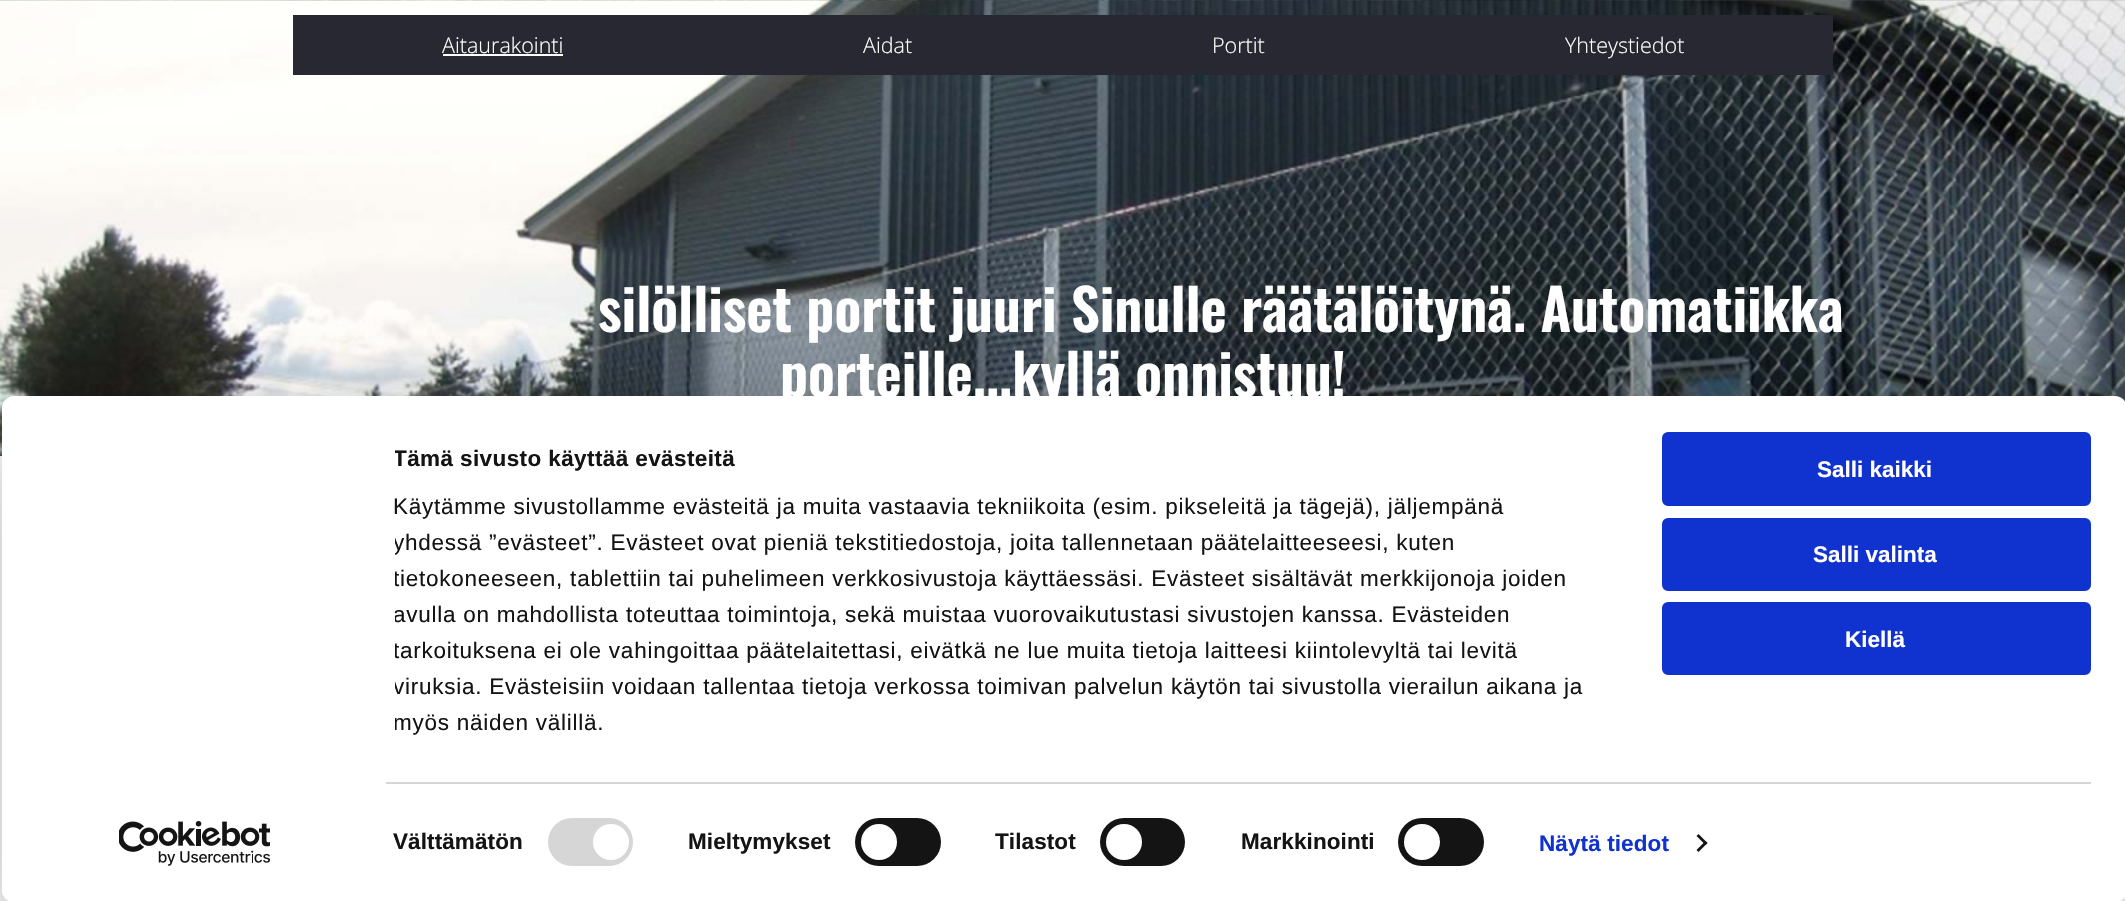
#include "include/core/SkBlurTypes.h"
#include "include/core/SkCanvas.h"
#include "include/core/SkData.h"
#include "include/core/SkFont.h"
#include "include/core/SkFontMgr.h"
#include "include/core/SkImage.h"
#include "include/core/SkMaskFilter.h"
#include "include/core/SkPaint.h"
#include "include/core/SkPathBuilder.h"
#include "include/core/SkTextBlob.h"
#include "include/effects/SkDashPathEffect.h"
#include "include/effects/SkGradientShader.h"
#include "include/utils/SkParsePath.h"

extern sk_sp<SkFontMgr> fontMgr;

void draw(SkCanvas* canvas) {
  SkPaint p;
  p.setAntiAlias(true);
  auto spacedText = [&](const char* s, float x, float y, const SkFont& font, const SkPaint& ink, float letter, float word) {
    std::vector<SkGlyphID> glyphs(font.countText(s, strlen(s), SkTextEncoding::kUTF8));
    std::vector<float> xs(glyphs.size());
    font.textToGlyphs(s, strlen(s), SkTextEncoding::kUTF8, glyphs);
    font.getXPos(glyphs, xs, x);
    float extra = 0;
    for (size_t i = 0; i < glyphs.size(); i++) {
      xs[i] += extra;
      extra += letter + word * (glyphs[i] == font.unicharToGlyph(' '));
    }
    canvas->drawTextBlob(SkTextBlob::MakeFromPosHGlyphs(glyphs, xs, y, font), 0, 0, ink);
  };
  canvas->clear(SK_ColorWHITE);
  canvas->drawImageRect(SkImages::DeferredFromEncodedData(SkData::MakeFromFileName("images/1.png")), SkRect::MakeLTRB(0, 0, 2125, 456), SkSamplingOptions());
  p.setColor(SkColorSetRGB(39, 40, 50));
  canvas->drawRect(SkRect::MakeLTRB(293, 15, 1833, 75), p);
  p.setColor(SK_ColorWHITE);
  canvas->drawRect(SkRect::MakeLTRB(443, 54, 563, 56), p);
  canvas->save();
  canvas->clipPath(SkPathBuilder(SkPathFillType::kEvenOdd).moveTo(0, 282).lineTo(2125, 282).lineTo(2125, 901).lineTo(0, 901).close().moveTo(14, 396).lineTo(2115, 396).cubicTo(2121.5f, 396, 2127, 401.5f, 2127, 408).lineTo(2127, 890).cubicTo(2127, 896.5f, 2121.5f, 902, 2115, 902).lineTo(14, 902).cubicTo(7.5f, 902, 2, 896.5f, 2, 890).lineTo(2, 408).cubicTo(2, 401.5f, 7.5f, 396, 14, 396).close().detach(), true);
  p.setColor(SkColorSetARGB(77, 0, 0, 0));
  p.setMaskFilter(SkMaskFilter::MakeBlur(kNormal_SkBlurStyle, 52.5f));
  canvas->drawRoundRect(SkRect::MakeLTRB(2, 441, 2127, 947), 12, 12, p);
  p.setMaskFilter(nullptr);
  canvas->restore();
  p.setColor(SK_ColorWHITE);
  canvas->drawRoundRect(SkRect::MakeLTRB(2, 396, 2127, 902), 12, 12, p);
  p.setColor(SkColorSetRGB(214, 214, 214));
  canvas->drawRect(SkRect::MakeLTRB(386, 782, 2091, 784), p);
  canvas->drawRoundRect(SkRect::MakeLTRB(548, 818, 633, 866), 24, 24, p);
  p.setColor(SK_ColorWHITE);
  canvas->drawCircle(611, 842, 18, p);
  p.setColor(SkColorSetRGB(20, 20, 20));
  canvas->drawRoundRect(SkRect::MakeLTRB(855, 818, 941, 866), 24, 24, p);
  p.setColor(SK_ColorWHITE);
  canvas->drawCircle(879, 842, 18, p);
  p.setColor(SkColorSetRGB(20, 20, 20));
  canvas->drawRoundRect(SkRect::MakeLTRB(1100, 818, 1185, 866), 24, 24, p);
  p.setColor(SK_ColorWHITE);
  canvas->drawCircle(1124, 842, 18, p);
  p.setColor(SkColorSetRGB(20, 20, 20));
  canvas->drawRoundRect(SkRect::MakeLTRB(1398, 818, 1484, 866), 24, 24, p);
  p.setColor(SK_ColorWHITE);
  canvas->drawCircle(1422, 842, 18, p);
  p.setColor(SkColorSetRGB(20, 20, 20));
  canvas->drawPath(SkPathBuilder().moveTo(1698.5f, 834).lineTo(1707.5f, 843).lineTo(1705.5f, 845).lineTo(1696.5f, 836).close().detach(), p);
  canvas->drawPath(SkPathBuilder().moveTo(1705.5f, 841).lineTo(1707.5f, 843).lineTo(1698.5f, 852).lineTo(1696.5f, 850).close().detach(), p);
  p.setColor(SkColorSetRGB(16, 50, 207));
  canvas->drawRoundRect(SkRect::MakeLTRB(1663.5f, 433.5f, 2089.5f, 504.5f), 4.5f, 4.5f, p);
  p.setStyle(SkPaint::kStroke_Style);
  p.setStrokeWidth(3);
  canvas->drawRoundRect(SkRect::MakeLTRB(1663.5f, 433.5f, 2089.5f, 504.5f), 4.5f, 4.5f, p);
  p.setStyle(SkPaint::kFill_Style);
  canvas->drawRoundRect(SkRect::MakeLTRB(1663.5f, 519.5f, 2089.5f, 589.5f), 4.5f, 4.5f, p);
  p.setStyle(SkPaint::kStroke_Style);
  canvas->drawRoundRect(SkRect::MakeLTRB(1663.5f, 519.5f, 2089.5f, 589.5f), 4.5f, 4.5f, p);
  p.setStyle(SkPaint::kFill_Style);
  canvas->drawRoundRect(SkRect::MakeLTRB(1663.5f, 603.5f, 2089.5f, 673.5f), 4.5f, 4.5f, p);
  p.setStyle(SkPaint::kStroke_Style);
  canvas->drawRoundRect(SkRect::MakeLTRB(1663.5f, 603.5f, 2089.5f, 673.5f), 4.5f, 4.5f, p);
  canvas->drawImageRect(SkImages::DeferredFromEncodedData(SkData::MakeFromFileName("images/2.png")), SkRect::MakeLTRB(119, 821, 270, 866), SkSamplingOptions());
  SkFont font1(fontMgr->matchFamilyStyle("Open Sans", SkFontStyle(300, SkFontStyle::kNormal_Width, SkFontStyle::kUpright_Slant)), 21.5f);
  font1.setSubpixel(true);
  p.setStyle(SkPaint::kFill_Style);
  p.setColor(SK_ColorWHITE);
  canvas->drawString("Aitaurakointi", 442, 53, font1, p);
  canvas->drawString("Aidat", 863, 53, font1, p);
  canvas->drawString("Portit", 1212, 53, font1, p);
  canvas->drawString("Yhteystiedot", 1565, 53, font1, p);
  SkFont font2(fontMgr->matchFamilyStyle("Oswald", SkFontStyle(600, SkFontStyle::kNormal_Width, SkFontStyle::kUpright_Slant)), 57);
  font2.setSubpixel(true);
  canvas->drawString("silölliset portit juuri Sinulle räätälöitynä. Automatiikka", 598, 332, font2, p);
  canvas->drawString("porteille...kyllä onnistuu!", 780, 397, font2, p);
  canvas->save();
  canvas->clipRect(SkRect::MakeLTRB(395, 441, 1619, 740));
  SkFont font3(fontMgr->matchFamilyStyle("Liberation Sans", SkFontStyle::Bold()), 22.5f);
  font3.setSubpixel(true);
  p.setColor(SkColorSetRGB(20, 20, 20));
  spacedText("Tämä sivusto käyttää evästeitä", 393, 466, font3, p, 0.4f, 0);
  canvas->restore();
  SkFont font4(fontMgr->matchFamilyStyle("Liberation Sans", SkFontStyle::Normal()), 22.5f);
  font4.setSubpixel(true);
  spacedText("Käytämme sivustollamme evästeitä ja muita vastaavia tekniikoita (esim. pikseleitä ja tägejä), jäljempänä", 393, 514, font4, p, 0.75f, 0);
  canvas->save();
  canvas->clipRect(SkRect::MakeLTRB(395, 441, 1619, 740));
  spacedText("yhdessä ”evästeet”. Evästeet ovat pieniä tekstitiedostoja, joita tallennetaan päätelaitteeseesi, kuten", 393, 550, font4, p, 0.75f, 0);
  spacedText("tietokoneeseen, tablettiin tai puhelimeen verkkosivustoja käyttäessäsi. Evästeet sisältävät merkkijonoja joiden", 393, 586, font4, p, 0.75f, 0);
  spacedText("avulla on mahdollista toteuttaa toimintoja, sekä muistaa vuorovaikutustasi sivustojen kanssa. Evästeiden", 393, 622, font4, p, 0.75f, 0);
  spacedText("tarkoituksena ei ole vahingoittaa päätelaitettasi, eivätkä ne lue muita tietoja laitteesi kiintolevyltä tai levitä", 393, 658, font4, p, 0.75f, 0);
  spacedText("viruksia. Evästeisiin voidaan tallentaa tietoja verkossa toimivan palvelun käytön tai sivustolla vierailun aikana ja", 393, 694, font4, p, 0.75f, 0);
  spacedText("myös näiden välillä.", 393, 730, font4, p, 0.75f, 0);
  canvas->restore();
  spacedText("Välttämätön", 393, 849, font3, p, 0.1f, 0);
  spacedText("Mieltymykset", 688, 849, font3, p, 0.1f, 0);
  spacedText("Tilastot", 995, 849, font3, p, 0.1f, 0);
  spacedText("Markkinointi", 1241, 849, font3, p, 0.1f, 0);
  p.setColor(SkColorSetRGB(16, 50, 207));
  spacedText("Näytä tiedot", 1539, 851, font3, p, 0.1f, 0);
  p.setColor(SK_ColorWHITE);
  canvas->drawString("Salli kaikki", 1817, 477, font3, p);
  canvas->drawString("Salli valinta", 1813, 562, font3, p);
  canvas->drawString("Kiellä", 1845, 647, font3, p);
}
